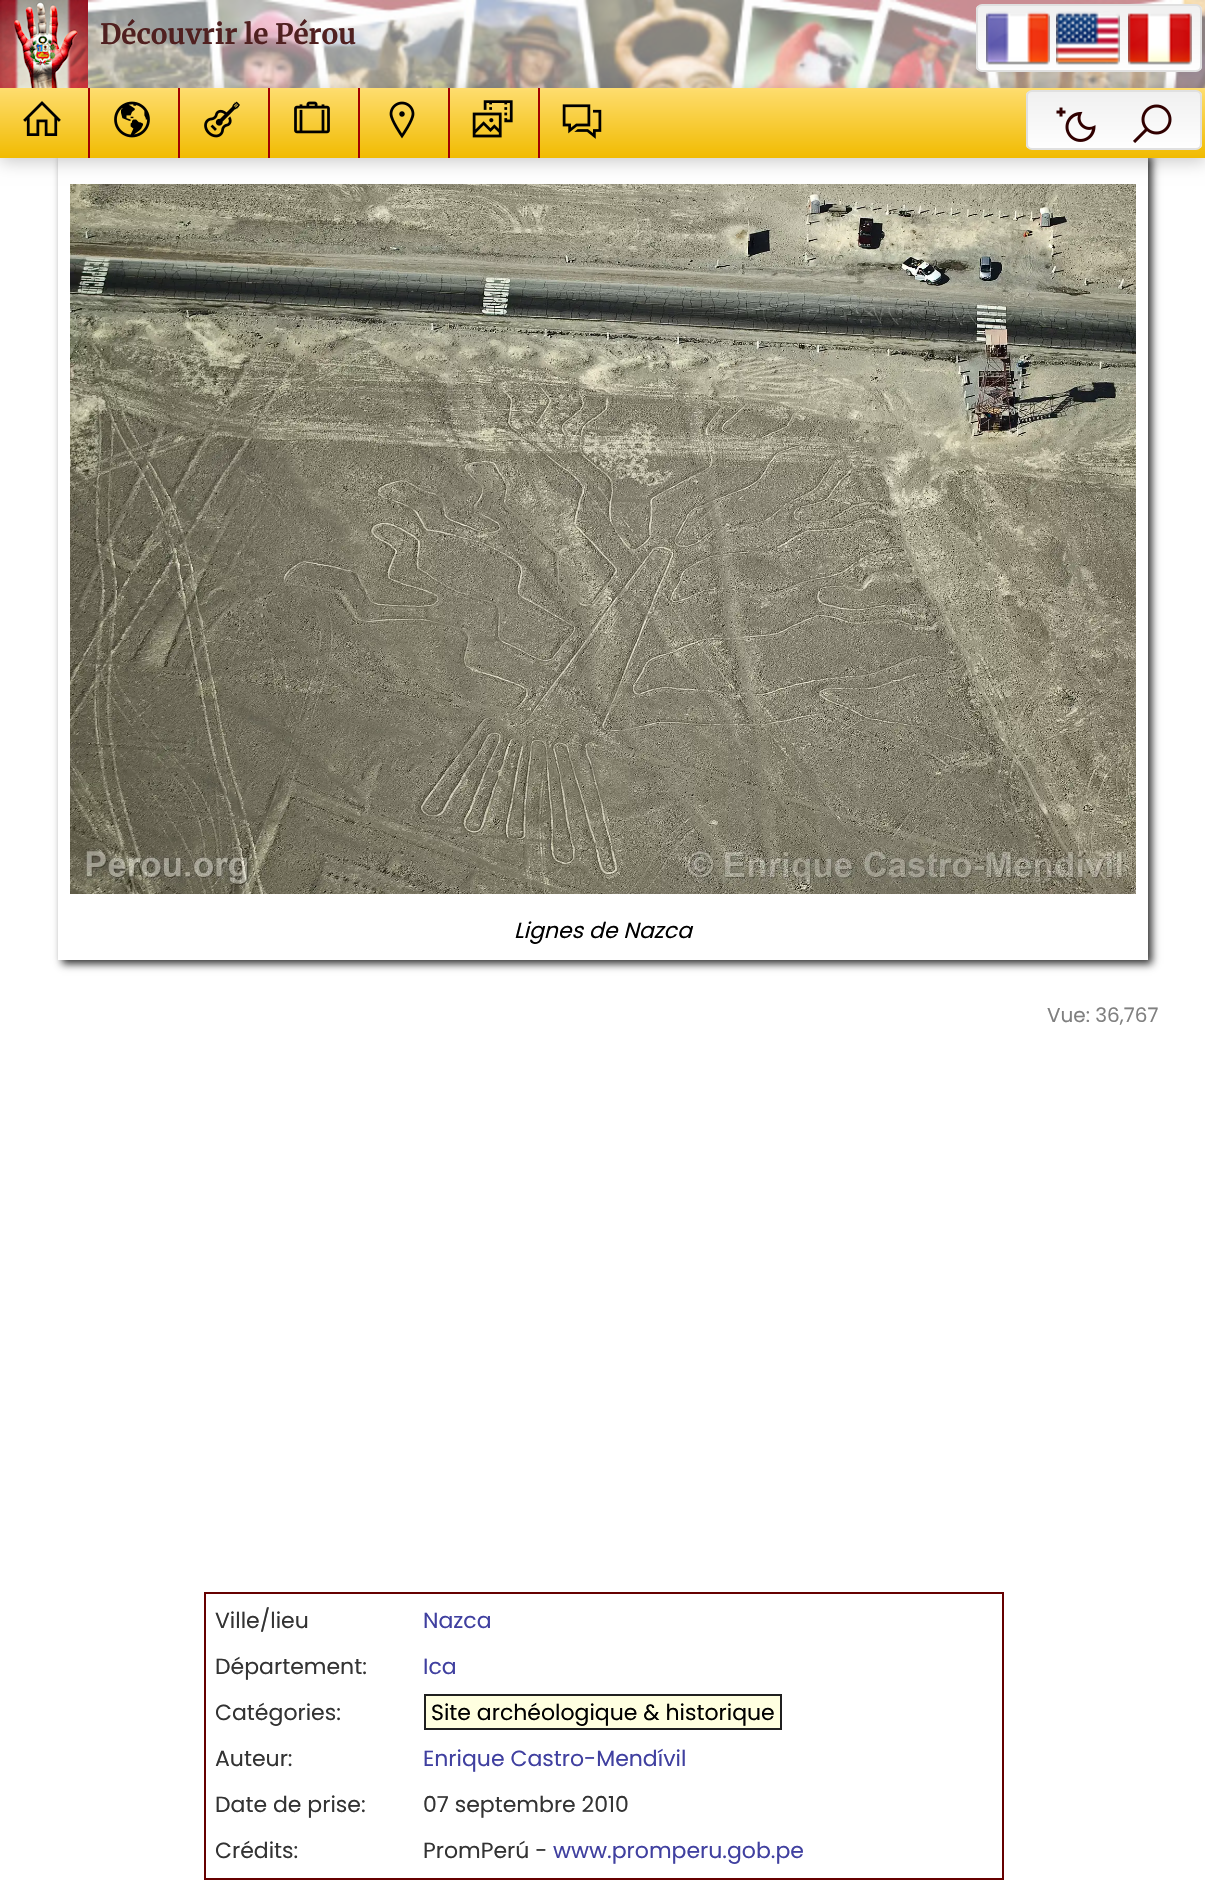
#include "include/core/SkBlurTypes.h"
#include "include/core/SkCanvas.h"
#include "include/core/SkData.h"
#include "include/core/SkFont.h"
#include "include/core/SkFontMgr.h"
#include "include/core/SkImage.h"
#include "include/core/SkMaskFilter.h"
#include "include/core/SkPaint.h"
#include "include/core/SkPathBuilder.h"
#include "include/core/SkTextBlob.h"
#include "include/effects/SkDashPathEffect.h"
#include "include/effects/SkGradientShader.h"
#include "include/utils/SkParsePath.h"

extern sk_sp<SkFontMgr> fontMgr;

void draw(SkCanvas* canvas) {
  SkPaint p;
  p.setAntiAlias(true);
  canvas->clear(SK_ColorWHITE);
  canvas->drawImageRect(SkImages::DeferredFromEncodedData(SkData::MakeFromFileName("images/2.png")), SkRect::MakeLTRB(88, 0, 1205, 88), SkSamplingOptions());
  canvas->save();
  canvas->clipPath(SkPathBuilder(SkPathFillType::kEvenOdd).moveTo(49, 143).lineTo(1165, 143).lineTo(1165, 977).lineTo(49, 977).close().moveTo(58, 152).lineTo(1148, 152).lineTo(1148, 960).lineTo(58, 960).close().detach(), true);
  p.setColor(SkColorSetRGB(51, 51, 51));
  p.setMaskFilter(SkMaskFilter::MakeBlur(kNormal_SkBlurStyle, 4));
  canvas->drawRect(SkRect::MakeLTRB(62, 156, 1152, 964), p);
  p.setMaskFilter(nullptr);
  canvas->restore();
  canvas->drawImageRect(SkImages::DeferredFromEncodedData(SkData::MakeFromFileName("images/15.png")), SkRect::MakeLTRB(70, 184, 1136, 894), SkSamplingOptions());
  p.setColor(SkColorSetARGB(51, 0, 0, 0));
  p.setMaskFilter(SkMaskFilter::MakeBlur(kNormal_SkBlurStyle, 8));
  canvas->drawRect(SkRect::MakeLTRB(0, 92, 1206, 162), p);
  p.setMaskFilter(nullptr);
  canvas->drawImageRect(SkImages::DeferredFromEncodedData(SkData::MakeFromFileName("images/1.png")), SkRect::MakeLTRB(0, 0, 88, 88), SkSamplingOptions());
  canvas->save();
  canvas->clipPath(SkPathBuilder().moveTo(982, 4).lineTo(1196, 4).cubicTo(1199.5f, 4, 1202, 6.5f, 1202, 10).lineTo(1202, 66).cubicTo(1202, 69.5f, 1199.5f, 72, 1196, 72).lineTo(982, 72).cubicTo(978.5f, 72, 976, 69.5f, 976, 66).lineTo(976, 10).cubicTo(976, 6.5f, 978.5f, 4, 982, 4).close().detach(), true);
  {
    const SkColor colors[] = {SkColorSetRGB(240, 240, 240), SkColorSetRGB(254, 254, 254)};
    const float stops[] = {0, 1};
    const SkPoint ends[] = {{1089, 6}, {1089, 70}};
    p.setShader(SkGradientShader::MakeLinear(ends, colors, stops, 2, SkTileMode::kClamp));
    p.setAlpha(255);
  }
  canvas->drawRect(SkRect::MakeLTRB(976, 6, 1202, 70), p);
  canvas->restore();
  p.setStyle(SkPaint::kStroke_Style);
  p.setStrokeWidth(2);
  p.setShader(nullptr);
  p.setColor(SkColorSetRGB(224, 224, 224));
  canvas->drawRoundRect(SkRect::MakeLTRB(977, 5, 1201, 71), 5, 5, p);
  canvas->drawImageRect(SkImages::DeferredFromEncodedData(SkData::MakeFromFileName("images/3.png")), SkRect::MakeLTRB(986, 11, 1050, 65), SkSamplingOptions());
  canvas->drawImageRect(SkImages::DeferredFromEncodedData(SkData::MakeFromFileName("images/4.png")), SkRect::MakeLTRB(1056, 11, 1120, 65), SkSamplingOptions());
  canvas->drawImageRect(SkImages::DeferredFromEncodedData(SkData::MakeFromFileName("images/5.png")), SkRect::MakeLTRB(1128, 13, 1192, 65), SkSamplingOptions());
  p.setStyle(SkPaint::kFill_Style);
  {
    const SkColor colors[] = {SkColorSetRGB(254, 221, 111), SkColorSetRGB(241, 187, 1)};
    const float stops[] = {0, 1};
    const SkPoint ends[] = {{603, 88}, {603, 158}};
    p.setShader(SkGradientShader::MakeLinear(ends, colors, stops, 2, SkTileMode::kClamp));
    p.setAlpha(255);
  }
  canvas->drawRect(SkRect::MakeLTRB(0, 88, 1205, 158), p);
  canvas->drawImageRect(SkImages::DeferredFromEncodedData(SkData::MakeFromFileName("images/6.png")), SkRect::MakeLTRB(23, 101, 61, 136), SkSamplingOptions());
  p.setShader(nullptr);
  p.setColor(SkColorSetRGB(160, 0, 0));
  canvas->drawRect(SkRect::MakeLTRB(88, 88, 90, 158), p);
  canvas->drawImageRect(SkImages::DeferredFromEncodedData(SkData::MakeFromFileName("images/7.png")), SkRect::MakeLTRB(114, 101, 150, 138), SkSamplingOptions());
  canvas->drawRect(SkRect::MakeLTRB(178, 88, 180, 158), p);
  canvas->drawImageRect(SkImages::DeferredFromEncodedData(SkData::MakeFromFileName("images/8.png")), SkRect::MakeLTRB(204, 101, 240, 138), SkSamplingOptions());
  canvas->drawRect(SkRect::MakeLTRB(268, 88, 270, 158), p);
  canvas->drawImageRect(SkImages::DeferredFromEncodedData(SkData::MakeFromFileName("images/9.png")), SkRect::MakeLTRB(294, 101, 330, 134), SkSamplingOptions());
  canvas->drawRect(SkRect::MakeLTRB(358, 88, 360, 158), p);
  canvas->drawImageRect(SkImages::DeferredFromEncodedData(SkData::MakeFromFileName("images/10.png")), SkRect::MakeLTRB(389, 101, 415, 139), SkSamplingOptions());
  canvas->drawRect(SkRect::MakeLTRB(448, 88, 450, 158), p);
  canvas->drawImageRect(SkImages::DeferredFromEncodedData(SkData::MakeFromFileName("images/11.png")), SkRect::MakeLTRB(472, 100, 513, 138), SkSamplingOptions());
  canvas->drawRect(SkRect::MakeLTRB(538, 88, 540, 158), p);
  canvas->drawImageRect(SkImages::DeferredFromEncodedData(SkData::MakeFromFileName("images/12.png")), SkRect::MakeLTRB(562, 104, 602, 139), SkSamplingOptions());
  canvas->save();
  canvas->clipPath(SkPathBuilder().moveTo(1032, 90).lineTo(1196, 90).cubicTo(1199.5f, 90, 1202, 92.5f, 1202, 96).lineTo(1202, 144).cubicTo(1202, 147.5f, 1199.5f, 150, 1196, 150).lineTo(1032, 150).cubicTo(1028.5f, 150, 1026, 147.5f, 1026, 144).lineTo(1026, 96).cubicTo(1026, 92.5f, 1028.5f, 90, 1032, 90).close().detach(), true);
  {
    const SkColor colors[] = {SkColorSetRGB(240, 240, 240), SkColorSetRGB(254, 254, 254)};
    const float stops[] = {0, 1};
    const SkPoint ends[] = {{1114, 92}, {1114, 148}};
    p.setShader(SkGradientShader::MakeLinear(ends, colors, stops, 2, SkTileMode::kClamp));
    p.setAlpha(255);
  }
  canvas->drawRect(SkRect::MakeLTRB(1026, 92, 1202, 148), p);
  canvas->restore();
  p.setStyle(SkPaint::kStroke_Style);
  p.setShader(nullptr);
  p.setColor(SkColorSetRGB(224, 224, 224));
  canvas->drawRoundRect(SkRect::MakeLTRB(1027, 91, 1201, 149), 5, 5, p);
  canvas->drawImageRect(SkImages::DeferredFromEncodedData(SkData::MakeFromFileName("images/13.png")), SkRect::MakeLTRB(1056, 107, 1096, 142), SkSamplingOptions());
  canvas->drawImageRect(SkImages::DeferredFromEncodedData(SkData::MakeFromFileName("images/14.png")), SkRect::MakeLTRB(1133, 104, 1172, 143), SkSamplingOptions());
  p.setColor(SkColorSetRGB(102, 0, 0));
  canvas->drawRect(SkRect::MakeLTRB(205, 1593, 1003, 1879), p);
  p.setStyle(SkPaint::kFill_Style);
  p.setColor(SkColorSetRGB(255, 255, 224));
  canvas->drawRect(SkRect::MakeLTRB(425, 1695, 781, 1729), p);
  p.setStyle(SkPaint::kStroke_Style);
  p.setColor(SkColorSetRGB(32, 32, 32));
  canvas->drawRect(SkRect::MakeLTRB(425, 1695, 781, 1729), p);
  SkFont font1(fontMgr->matchFamilyStyle("Merriweather", SkFontStyle::Bold()), 28);
  font1.setSubpixel(true);
  p.setStyle(SkPaint::kFill_Style);
  p.setColor(SkColorSetRGB(80, 32, 32));
  canvas->drawString("Découvrir le Pérou", 100, 44, font1, p);
  SkFont font2(fontMgr->matchFamilyStyle("Poppins", SkFontStyle::Italic()), 22);
  font2.setSubpixel(true);
  p.setColor(SK_ColorBLACK);
  canvas->drawString("Lignes de Nazca", 514, 938, font2, p);
  SkFont font3(fontMgr->matchFamilyStyle("Poppins", SkFontStyle::Normal()), 20);
  font3.setSubpixel(true);
  p.setColor(SkColorSetRGB(128, 128, 128));
  canvas->drawString("Vue: 36,767", 1047, 1022, font3, p);
  SkFont font4(fontMgr->matchFamilyStyle("Poppins", SkFontStyle::Normal()), 22);
  font4.setSubpixel(true);
  p.setColor(SkColorSetRGB(51, 51, 51));
  canvas->drawString("Ville/lieu", 215, 1628, font4, p);
  p.setColor(SkColorSetRGB(64, 64, 160));
  canvas->drawString("Nazca", 423, 1628, font4, p);
  p.setColor(SkColorSetRGB(51, 51, 51));
  canvas->drawString("Département:", 215, 1674, font4, p);
  p.setColor(SkColorSetRGB(64, 64, 160));
  canvas->drawString("Ica", 423, 1674, font4, p);
  p.setColor(SkColorSetRGB(51, 51, 51));
  canvas->drawString("Catégories:", 215, 1720, font4, p);
  p.setColor(SK_ColorBLACK);
  canvas->drawString("Site archéologique & historique", 431, 1720, font4, p);
  p.setColor(SkColorSetRGB(51, 51, 51));
  canvas->drawString("Auteur:", 215, 1766, font4, p);
  p.setColor(SkColorSetRGB(64, 64, 160));
  canvas->drawString("Enrique Castro-Mendívil", 423, 1766, font4, p);
  p.setColor(SkColorSetRGB(51, 51, 51));
  canvas->drawString("Date de prise:", 215, 1812, font4, p);
  canvas->drawString("07 septembre 2010", 423, 1812, font4, p);
  canvas->drawString("Crédits:", 215, 1858, font4, p);
  canvas->drawString("PromPerú -", 423, 1858, font4, p);
  p.setColor(SkColorSetRGB(64, 64, 160));
  canvas->drawString("www.promperu.gob.pe", 553, 1858, font4, p);
}
